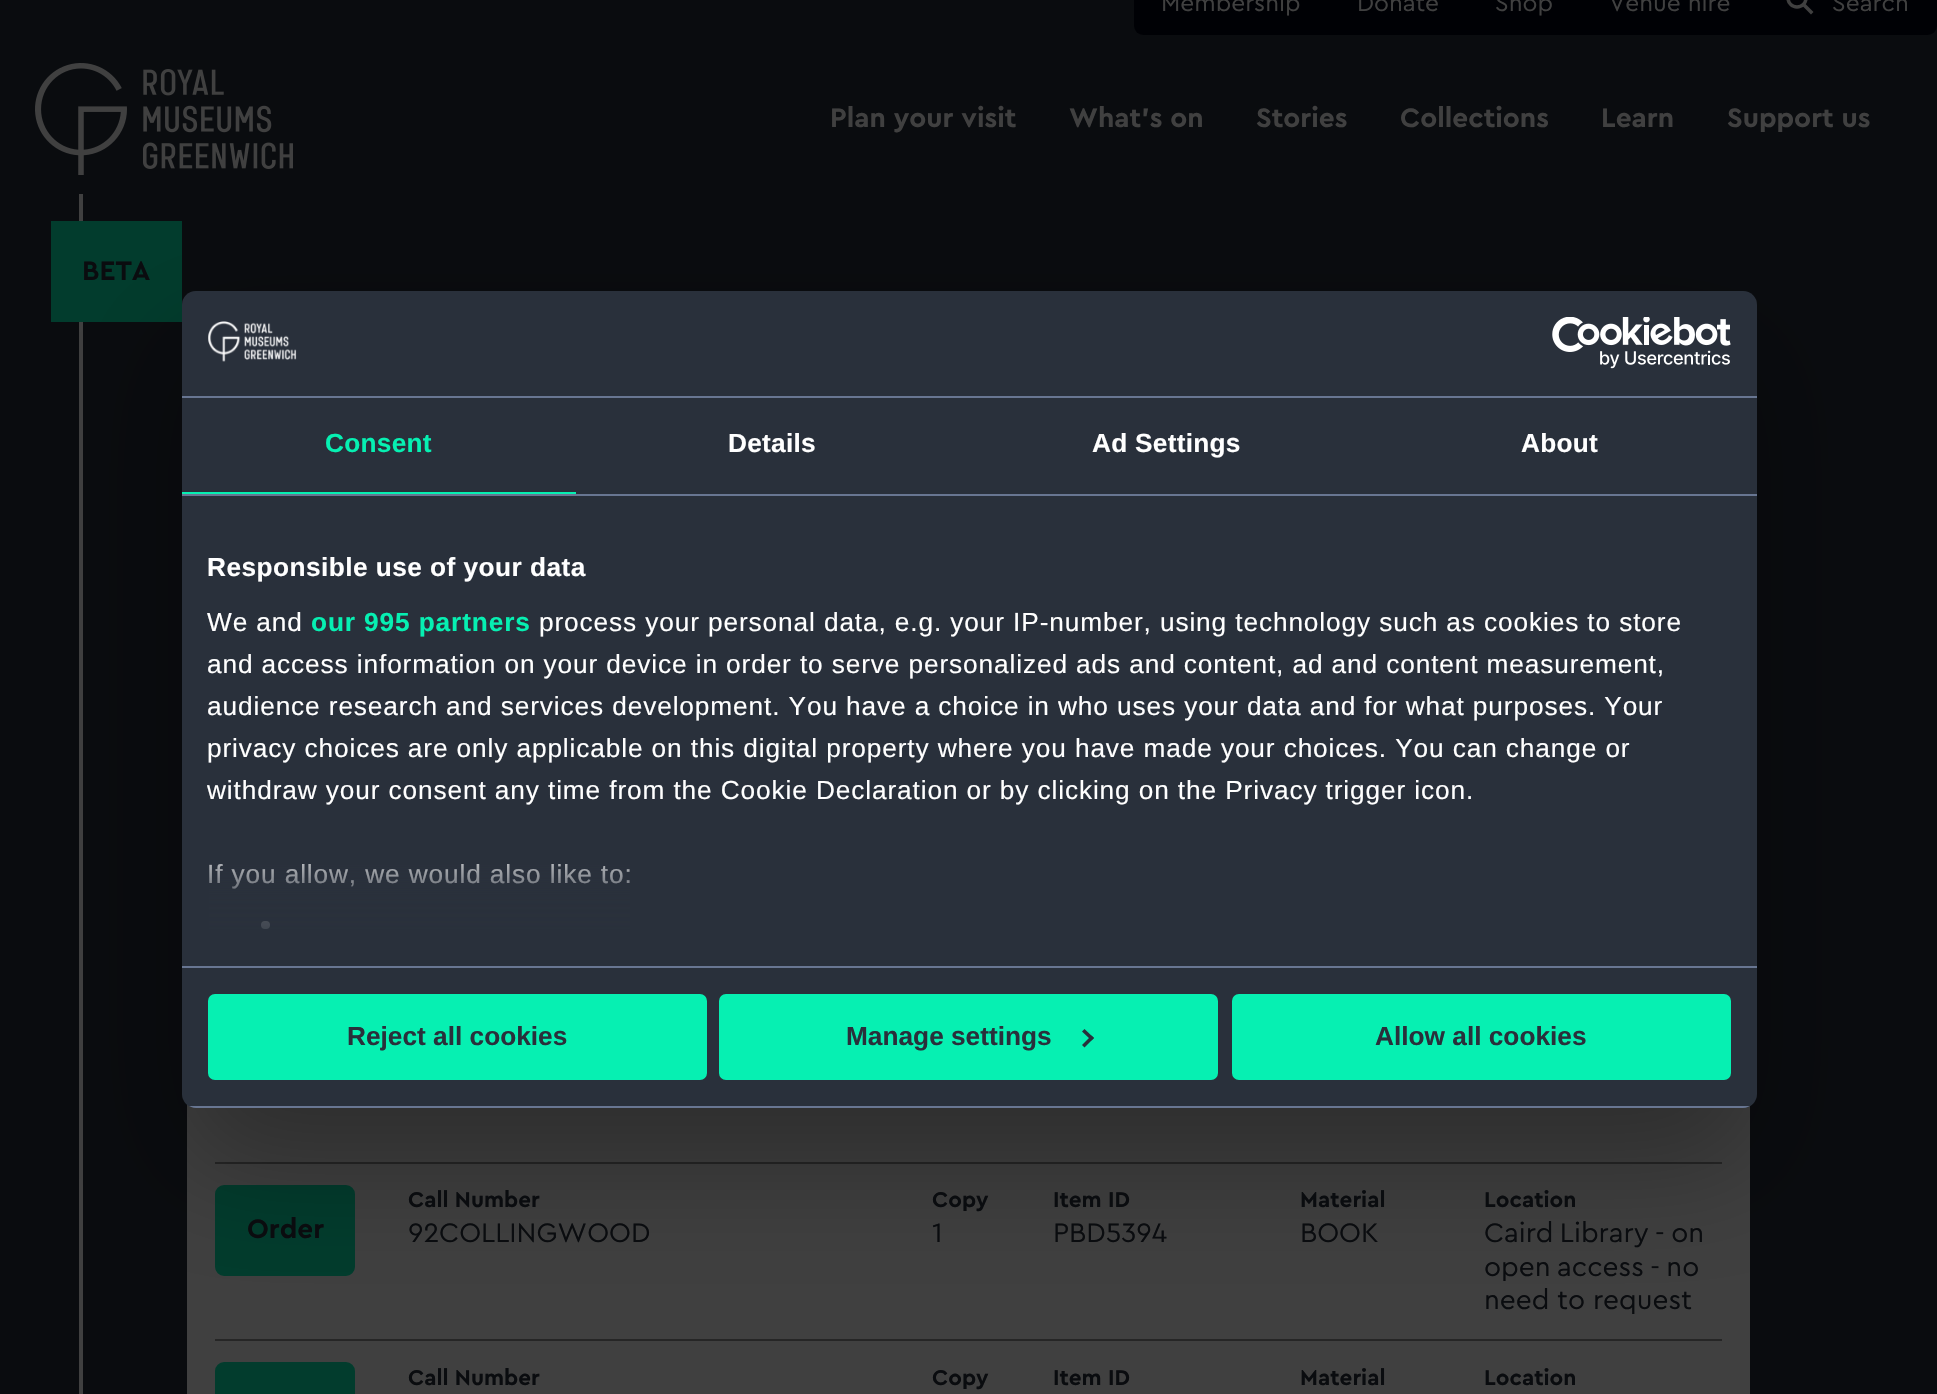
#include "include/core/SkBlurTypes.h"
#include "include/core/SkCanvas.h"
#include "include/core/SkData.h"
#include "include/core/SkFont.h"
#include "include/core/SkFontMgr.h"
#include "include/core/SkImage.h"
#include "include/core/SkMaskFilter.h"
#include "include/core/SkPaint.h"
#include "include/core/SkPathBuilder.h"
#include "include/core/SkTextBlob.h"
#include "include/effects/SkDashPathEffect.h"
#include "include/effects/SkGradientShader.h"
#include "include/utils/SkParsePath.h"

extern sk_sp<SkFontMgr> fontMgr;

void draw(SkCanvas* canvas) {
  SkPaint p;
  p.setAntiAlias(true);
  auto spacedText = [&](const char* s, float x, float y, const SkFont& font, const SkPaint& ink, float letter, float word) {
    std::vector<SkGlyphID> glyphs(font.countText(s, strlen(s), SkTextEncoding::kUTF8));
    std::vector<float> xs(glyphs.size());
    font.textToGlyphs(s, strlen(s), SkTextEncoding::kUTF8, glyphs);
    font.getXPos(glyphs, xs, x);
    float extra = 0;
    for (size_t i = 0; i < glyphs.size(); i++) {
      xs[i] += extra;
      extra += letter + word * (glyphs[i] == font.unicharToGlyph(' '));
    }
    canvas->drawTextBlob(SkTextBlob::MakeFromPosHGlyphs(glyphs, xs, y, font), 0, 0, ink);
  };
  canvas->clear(SkColorSetRGB(10, 12, 15));
  p.setColor(SkColorSetRGB(0, 1, 5));
  canvas->drawRoundRect(SkRect::MakeLTRB(1134, -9, 1937, 35), 9, 9, p);
  p.setStyle(SkPaint::kStroke_Style);
  p.setStrokeWidth(3.5f);
  p.setColor(SkColorSetRGB(64, 64, 64));
  canvas->drawCircle(1797, -2, 9, p);
  p.setStrokeCap(SkPaint::kSquare_Cap);
  canvas->drawPath(SkPathBuilder().moveTo(1804, 5).lineTo(1811, 12).detach(), p);
  canvas->drawImageRect(SkImages::DeferredFromEncodedData(SkData::MakeFromFileName("images/1.png")), SkRect::MakeLTRB(35, 63, 293, 175), SkSamplingOptions());
  p.setStyle(SkPaint::kFill_Style);
  canvas->drawRect(SkRect::MakeLTRB(79, 194, 83, 221), p);
  p.setColor(SkColorSetRGB(2, 60, 45));
  canvas->drawRect(SkRect::MakeLTRB(51, 221, 182, 322), p);
  p.setColor(SkColorSetRGB(64, 64, 64));
  canvas->drawRect(SkRect::MakeLTRB(79, 322, 83, 1394), p);
  canvas->drawRect(SkRect::MakeLTRB(187, 1104, 1750, 1394), p);
  p.setColor(SkColorSetRGB(2, 60, 45));
  canvas->drawRoundRect(SkRect::MakeLTRB(217, 1187, 353, 1274), 7, 7, p);
  p.setStyle(SkPaint::kStroke_Style);
  p.setStrokeWidth(4);
  p.setStrokeCap(SkPaint::kButt_Cap);
  canvas->drawRoundRect(SkRect::MakeLTRB(217, 1187, 353, 1274), 7, 7, p);
  p.setStyle(SkPaint::kFill_Style);
  p.setColor(SkColorSetRGB(38, 38, 38));
  canvas->drawRect(SkRect::MakeLTRB(215, 1162, 1722, 1164), p);
  p.setColor(SkColorSetRGB(2, 60, 45));
  canvas->drawRoundRect(SkRect::MakeLTRB(217, 1364, 353, 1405), 7, 7, p);
  p.setStyle(SkPaint::kStroke_Style);
  canvas->drawRoundRect(SkRect::MakeLTRB(217, 1364, 353, 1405), 7, 7, p);
  p.setStyle(SkPaint::kFill_Style);
  p.setColor(SkColorSetRGB(38, 38, 38));
  canvas->drawRect(SkRect::MakeLTRB(215, 1339, 1722, 1341), p);
  p.setColor(SkColorSetARGB(77, 0, 0, 0));
  p.setMaskFilter(SkMaskFilter::MakeBlur(kNormal_SkBlurStyle, 59.5f));
  canvas->drawRoundRect(SkRect::MakeLTRB(182, 347, 1757, 1164), 14, 14, p);
  p.setMaskFilter(nullptr);
  p.setColor(SkColorSetRGB(41, 48, 59));
  canvas->drawRoundRect(SkRect::MakeLTRB(182, 291, 1757, 1108), 14, 14, p);
  p.setColor(SkColorSetRGB(104, 118, 146));
  canvas->drawRect(SkRect::MakeLTRB(182, 396, 1757, 398), p);
  canvas->drawImageRect(SkImages::DeferredFromEncodedData(SkData::MakeFromFileName("images/2.png")), SkRect::MakeLTRB(208, 321, 297, 362), SkSamplingOptions());
  canvas->drawImageRect(SkImages::DeferredFromEncodedData(SkData::MakeFromFileName("images/3.png")), SkRect::MakeLTRB(1552, 317, 1731, 369), SkSamplingOptions());
  canvas->drawRect(SkRect::MakeLTRB(182, 494, 1757, 496), p);
  p.setColor(SkColorSetRGB(6, 240, 178));
  canvas->drawRect(SkRect::MakeLTRB(182, 492, 576, 494), p);
  p.setColor(SkColorSetRGB(104, 118, 146));
  canvas->drawRect(SkRect::MakeLTRB(182, 966, 1757, 968), p);
  p.setColor(SK_ColorWHITE);
  canvas->drawRoundRect(SkRect::MakeLTRB(261, 921, 270, 929), 4, 4, p);
  canvas->save();
  canvas->clipPath(SkPathBuilder().moveTo(196, 291).lineTo(1743, 291).cubicTo(1750.5f, 291, 1757, 297.5f, 1757, 305).lineTo(1757, 1094).cubicTo(1757, 1101.5f, 1750.5f, 1108, 1743, 1108).lineTo(196, 1108).cubicTo(188.5f, 1108, 182, 1101.5f, 182, 1094).lineTo(182, 305).cubicTo(182, 297.5f, 188.5f, 291, 196, 291).close().detach(), true);
  p.setColor(SkColorSetRGB(104, 118, 146));
  canvas->drawRect(SkRect::MakeLTRB(182, 1106, 1757, 1108), p);
  canvas->restore();
  p.setColor(SkColorSetRGB(6, 240, 178));
  canvas->drawRoundRect(SkRect::MakeLTRB(210, 996, 705, 1078), 5, 5, p);
  p.setStyle(SkPaint::kStroke_Style);
  canvas->drawRoundRect(SkRect::MakeLTRB(210, 996, 705, 1078), 5, 5, p);
  p.setStyle(SkPaint::kFill_Style);
  canvas->drawRoundRect(SkRect::MakeLTRB(721, 996, 1216, 1078), 5, 5, p);
  p.setStyle(SkPaint::kStroke_Style);
  canvas->drawRoundRect(SkRect::MakeLTRB(721, 996, 1216, 1078), 5, 5, p);
  p.setStyle(SkPaint::kFill_Style);
  p.setColor(SkColorSetRGB(41, 48, 59));
  canvas->drawPath(SkPathBuilder().moveTo(1084.5f, 1029).lineTo(1094, 1038).lineTo(1091.5f, 1040.5f).lineTo(1082, 1031.5f).close().detach(), p);
  canvas->drawPath(SkPathBuilder().moveTo(1091.5f, 1035.5f).lineTo(1094, 1038).lineTo(1084.5f, 1047.5f).lineTo(1082, 1045).close().detach(), p);
  p.setColor(SkColorSetRGB(6, 240, 178));
  canvas->drawRoundRect(SkRect::MakeLTRB(1234, 996, 1729, 1078), 5, 5, p);
  p.setStyle(SkPaint::kStroke_Style);
  canvas->drawRoundRect(SkRect::MakeLTRB(1234, 996, 1729, 1078), 5, 5, p);
  SkFont font1(fontMgr->matchFamilyStyle("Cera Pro", SkFontStyle::Normal()), 24.5f);
  font1.setSubpixel(true);
  p.setStyle(SkPaint::kFill_Style);
  p.setColor(SkColorSetRGB(64, 64, 64));
  canvas->drawString("Membership", 1161, 11, font1, p);
  canvas->drawString("Donate", 1357, 11, font1, p);
  canvas->drawString("Shop", 1495, 11, font1, p);
  canvas->drawString("Venue hire", 1609, 11, font1, p);
  canvas->drawString("Search", 1832, 11, font1, p);
  SkFont font2(fontMgr->matchFamilyStyle("Cera Pro", SkFontStyle::Bold()), 28);
  font2.setSubpixel(true);
  canvas->drawString("Plan your visit", 830, 127, font2, p);
  canvas->drawString("What's on", 1069, 127, font2, p);
  canvas->drawString("Stories", 1256, 127, font2, p);
  canvas->drawString("Collections", 1400, 127, font2, p);
  canvas->drawString("Learn", 1601, 127, font2, p);
  canvas->drawString("Support us", 1727, 127, font2, p);
  p.setColor(SkColorSetRGB(10, 12, 15));
  canvas->drawString("BETA", 82, 280, font2, p);
  canvas->drawString("Order", 247, 1238, font2, p);
  SkFont font3(fontMgr->matchFamilyStyle("Cera Pro", SkFontStyle::Bold()), 22.5f);
  font3.setSubpixel(true);
  canvas->drawString("Call Number", 408, 1207, font3, p);
  SkFont font4(fontMgr->matchFamilyStyle("Cera Pro", SkFontStyle::Normal()), 28);
  font4.setSubpixel(true);
  canvas->drawString("92COLLINGWOOD", 408, 1242, font4, p);
  canvas->drawString("Copy", 932, 1207, font3, p);
  canvas->drawString("1", 932, 1242, font4, p);
  canvas->drawString("Item ID", 1053, 1207, font3, p);
  canvas->drawString("PBD5394", 1053, 1242, font4, p);
  canvas->drawString("Material", 1300, 1207, font3, p);
  canvas->drawString("BOOK", 1300, 1242, font4, p);
  canvas->drawString("Location", 1484, 1207, font3, p);
  spacedText("Caird Library - on", 1484, 1242, font4, p, 0, -1.5f);
  spacedText("open access - no", 1484, 1276, font4, p, 0, -1.5f);
  canvas->drawString("need to request", 1484, 1309, font4, p);
  canvas->drawString("Call Number", 408, 1385, font3, p);
  canvas->drawString("Copy", 932, 1385, font3, p);
  canvas->drawString("Item ID", 1053, 1385, font3, p);
  canvas->drawString("Material", 1300, 1385, font3, p);
  canvas->drawString("Location", 1484, 1385, font3, p);
  SkFont font5(fontMgr->matchFamilyStyle("Liberation Sans", SkFontStyle::Bold()), 26.25f);
  font5.setSubpixel(true);
  p.setColor(SkColorSetRGB(6, 240, 178));
  spacedText("Consent", 325, 452, font5, p, 0.25f, 0);
  p.setColor(SK_ColorWHITE);
  spacedText("Details", 728, 452, font5, p, 0.25f, 0);
  spacedText("Ad Settings", 1092, 452, font5, p, 0.25f, 0);
  spacedText("About", 1521, 452, font5, p, 0.25f, 0);
  spacedText("Responsible use of your data", 207, 576, font5, p, 0.45f, 0);
  SkFont font6(fontMgr->matchFamilyStyle("Liberation Sans", SkFontStyle::Normal()), 26.25f);
  font6.setSubpixel(true);
  spacedText("We and", 207, 631, font6, p, 0.88f, 0);
  p.setColor(SkColorSetRGB(6, 240, 178));
  spacedText("our 995 partners", 311, 631, font5, p, 0.88f, 0);
  p.setColor(SK_ColorWHITE);
  spacedText("process your personal data, e.g. your IP-number, using technology such as cookies to store", 539, 631, font6, p, 0.88f, 0);
  spacedText("and access information on your device in order to serve personalized ads and content, ad and content measurement,", 207, 673, font6, p, 0.88f, 0);
  spacedText("audience research and services development. You have a choice in who uses your data and for what purposes. Your", 207, 715, font6, p, 0.88f, 0);
  spacedText("privacy choices are only applicable on this digital property where you have made your choices. You can change or", 207, 757, font6, p, 0.88f, 0);
  spacedText("withdraw your consent any time from the Cookie Declaration or by clicking on the Privacy trigger icon.", 207, 799, font6, p, 0.88f, 0);
  spacedText("If you allow, we would also like to:", 207, 883, font6, p, 0.88f, 0);
  {
    const SkColor colors[] = {SkColorSetRGB(41, 48, 59), SkColorSetARGB(204, 41, 48, 59), SkColorSetARGB(0, 41, 48, 59)};
    const float stops[] = {0, 0.5f, 1};
    const SkPoint ends[] = {{958, 965}, {958, 834}};
    p.setShader(SkGradientShader::MakeLinear(ends, colors, stops, 3, SkTileMode::kClamp));
    p.setAlpha(255);
  }
  canvas->drawRect(SkRect::MakeLTRB(209, 864, 630, 929), p);
  p.setShader(nullptr);
  p.setColor(SkColorSetRGB(41, 48, 59));
  canvas->drawString("Reject all cookies", 347, 1045, font5, p);
  canvas->drawString("Manage settings", 846, 1045, font5, p);
  canvas->drawString("Allow all cookies", 1375, 1045, font5, p);
}
